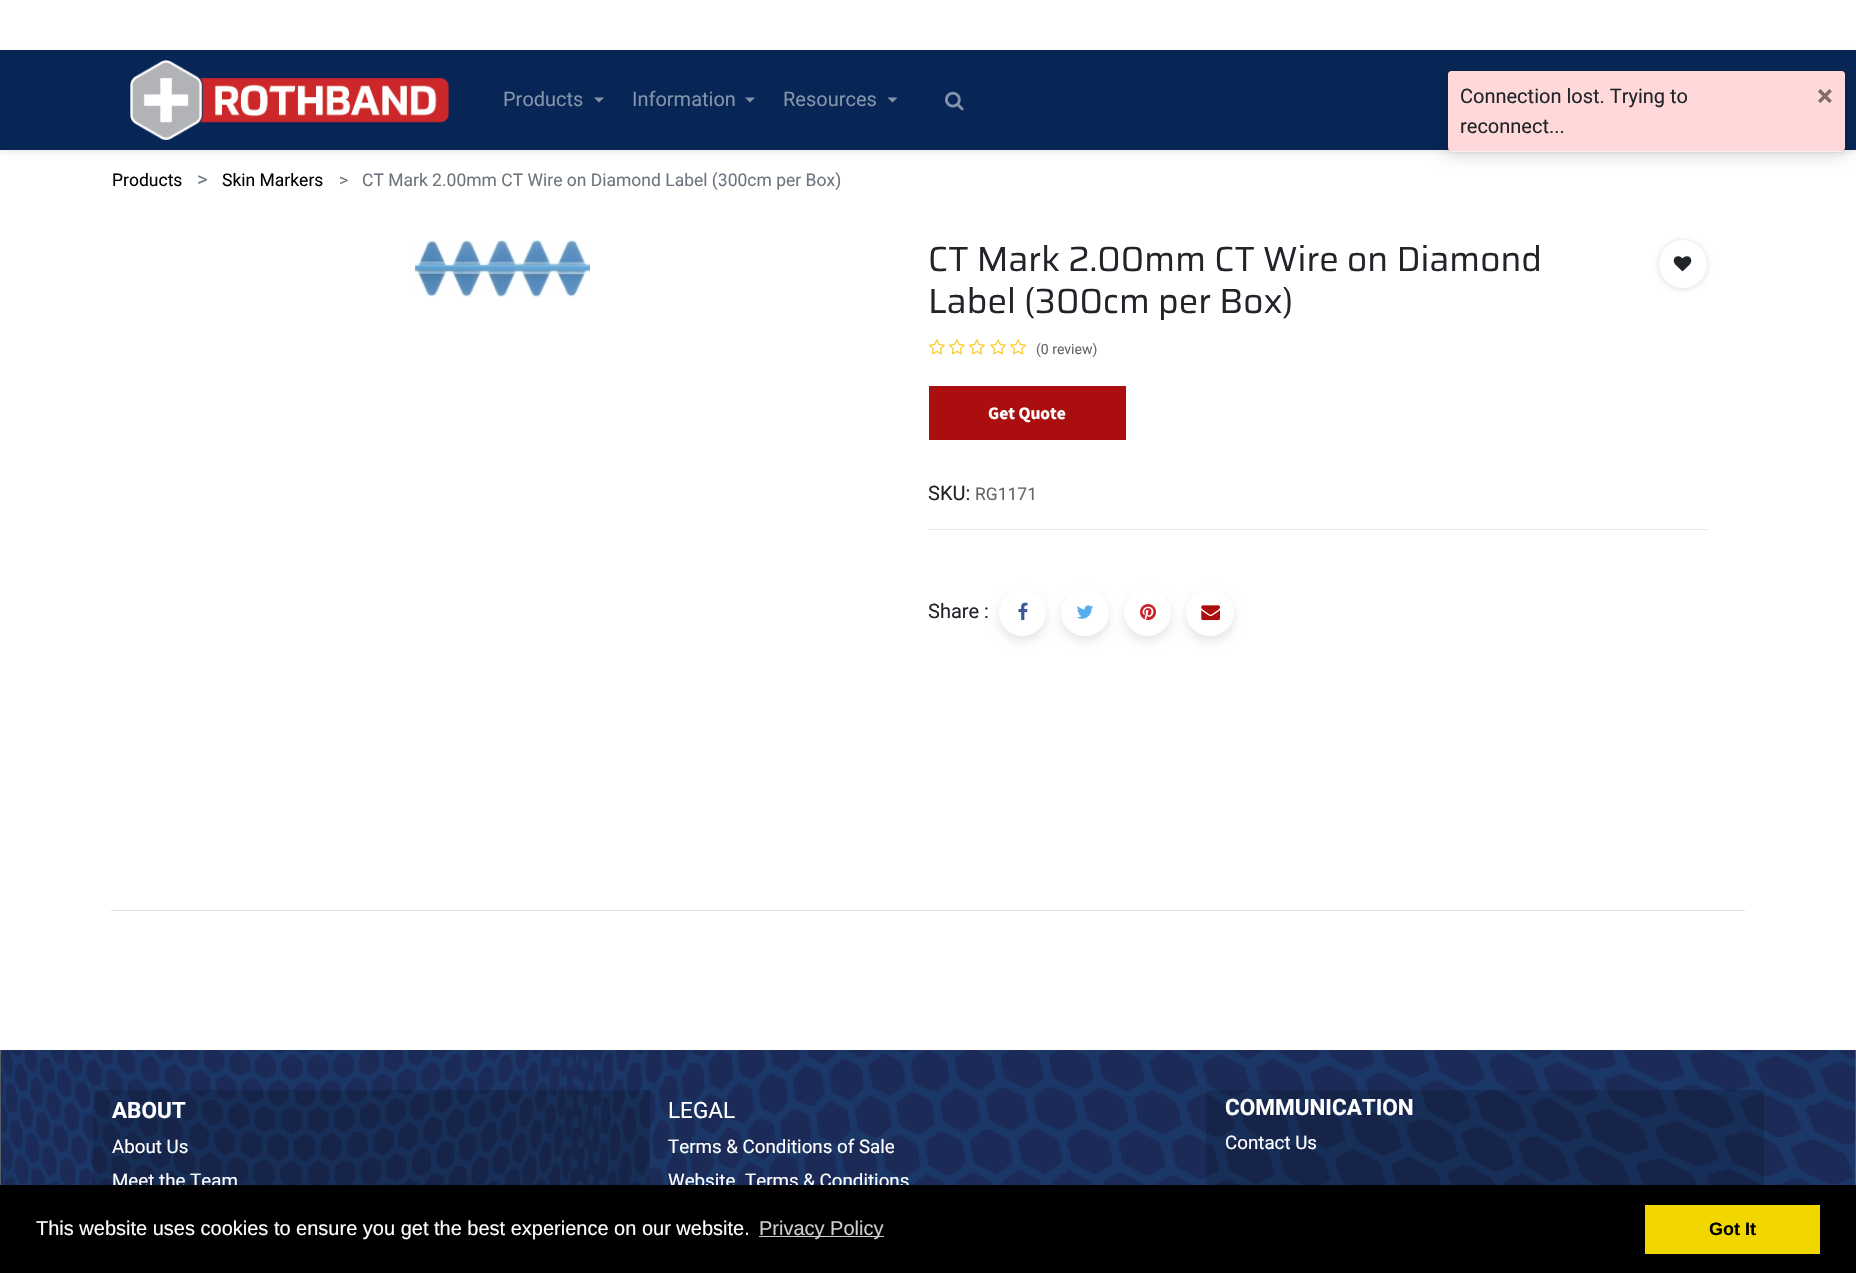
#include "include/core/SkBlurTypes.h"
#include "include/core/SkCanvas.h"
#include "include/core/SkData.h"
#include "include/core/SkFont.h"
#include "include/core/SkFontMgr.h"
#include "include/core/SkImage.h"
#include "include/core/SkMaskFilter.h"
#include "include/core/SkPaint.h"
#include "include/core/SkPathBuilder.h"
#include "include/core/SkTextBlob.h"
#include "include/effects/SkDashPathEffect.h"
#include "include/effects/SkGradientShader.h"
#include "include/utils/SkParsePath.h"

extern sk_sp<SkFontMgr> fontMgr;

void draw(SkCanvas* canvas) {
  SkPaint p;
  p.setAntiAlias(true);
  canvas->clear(SK_ColorWHITE);
  p.setColor(SkColorSetARGB(18, 0, 0, 0));
  p.setMaskFilter(SkMaskFilter::MakeBlur(kNormal_SkBlurStyle, 2.5f));
  canvas->drawRect(SkRect::MakeLTRB(0, 53, 1856, 153), p);
  p.setMaskFilter(nullptr);
  p.setColor(SkColorSetRGB(7, 38, 85));
  canvas->drawRect(SkRect::MakeLTRB(0, 50, 1856, 150), p);
  canvas->drawImageRect(SkImages::DeferredFromEncodedData(SkData::MakeFromFileName("images/1.png")), SkRect::MakeLTRB(130, 60, 449, 140), SkSamplingOptions());
  p.setColor(SkColorSetRGB(131, 147, 170));
  canvas->drawPath(SkPathBuilder().moveTo(594, 97.5f).lineTo(604, 97.5f).lineTo(599, 102.5f).close().detach(), p);
  canvas->drawPath(SkPathBuilder().moveTo(745, 97.5f).lineTo(755, 97.5f).lineTo(750, 102.5f).close().detach(), p);
  canvas->drawPath(SkPathBuilder().moveTo(887.5f, 97.5f).lineTo(897.5f, 97.5f).lineTo(892.5f, 102.5f).close().detach(), p);
  canvas->drawImageRect(SkImages::DeferredFromEncodedData(SkData::MakeFromFileName("images/2.png")), SkRect::MakeLTRB(945, 91, 964, 111), SkSamplingOptions());
  canvas->drawImageRect(SkImages::DeferredFromEncodedData(SkData::MakeFromFileName("images/3.png")), SkRect::MakeLTRB(414, 240, 590, 297), SkSamplingOptions());
  p.setColor(SkColorSetARGB(26, 0, 0, 0));
  p.setMaskFilter(SkMaskFilter::MakeBlur(kNormal_SkBlurStyle, 2.5f));
  canvas->drawRoundRect(SkRect::MakeLTRB(1658, 240, 1708, 290), 25, 25, p);
  p.setMaskFilter(nullptr);
  p.setColor(SK_ColorWHITE);
  canvas->drawCircle(1683, 264, 24.5f, p);
  p.setStyle(SkPaint::kStroke_Style);
  p.setStrokeWidth(1);
  p.setColor(SkColorSetRGB(240, 240, 240));
  canvas->drawCircle(1683, 264, 24.5f, p);
  canvas->drawImageRect(SkImages::DeferredFromEncodedData(SkData::MakeFromFileName("images/4.png")), SkRect::MakeLTRB(1673, 256, 1692, 272), SkSamplingOptions());
  canvas->drawImageRect(SkImages::DeferredFromEncodedData(SkData::MakeFromFileName("images/5.png")), SkRect::MakeLTRB(928, 339, 945, 355), SkSamplingOptions());
  canvas->drawImageRect(SkImages::DeferredFromEncodedData(SkData::MakeFromFileName("images/5.png")), SkRect::MakeLTRB(948, 339, 965, 355), SkSamplingOptions());
  canvas->drawImageRect(SkImages::DeferredFromEncodedData(SkData::MakeFromFileName("images/5.png")), SkRect::MakeLTRB(968, 339, 985, 355), SkSamplingOptions());
  canvas->drawImageRect(SkImages::DeferredFromEncodedData(SkData::MakeFromFileName("images/6.png")), SkRect::MakeLTRB(990, 339, 1007, 355), SkSamplingOptions());
  canvas->drawImageRect(SkImages::DeferredFromEncodedData(SkData::MakeFromFileName("images/6.png")), SkRect::MakeLTRB(1010, 339, 1027, 355), SkSamplingOptions());
  p.setStyle(SkPaint::kFill_Style);
  p.setColor(SkColorSetRGB(170, 14, 14));
  canvas->drawRect(SkRect::MakeLTRB(929, 386, 1126, 440), p);
  p.setColor(SkColorSetRGB(230, 230, 230));
  canvas->drawRect(SkRect::MakeLTRB(929, 529, 1708, 530), p);
  p.setColor(SkColorSetARGB(26, 0, 0, 0));
  p.setMaskFilter(SkMaskFilter::MakeBlur(kNormal_SkBlurStyle, 5));
  canvas->drawRoundRect(SkRect::MakeLTRB(999, 594, 1046, 641), 23.5f, 23.5f, p);
  p.setMaskFilter(nullptr);
  p.setColor(SK_ColorWHITE);
  canvas->drawCircle(1022.5f, 612.5f, 23.5f, p);
  canvas->drawImageRect(SkImages::DeferredFromEncodedData(SkData::MakeFromFileName("images/7.png")), SkRect::MakeLTRB(1018, 602, 1028, 621), SkSamplingOptions());
  p.setColor(SkColorSetARGB(26, 0, 0, 0));
  p.setMaskFilter(SkMaskFilter::MakeBlur(kNormal_SkBlurStyle, 5));
  canvas->drawRoundRect(SkRect::MakeLTRB(1061, 594, 1109, 641), 23.5f, 23.5f, p);
  p.setMaskFilter(nullptr);
  p.setColor(SK_ColorWHITE);
  canvas->drawRoundRect(SkRect::MakeLTRB(1061, 589, 1109, 636), 23.5f, 23.5f, p);
  canvas->drawImageRect(SkImages::DeferredFromEncodedData(SkData::MakeFromFileName("images/8.png")), SkRect::MakeLTRB(1077, 605, 1093, 619), SkSamplingOptions());
  p.setColor(SkColorSetARGB(26, 0, 0, 0));
  p.setMaskFilter(SkMaskFilter::MakeBlur(kNormal_SkBlurStyle, 5));
  canvas->drawRoundRect(SkRect::MakeLTRB(1124, 594, 1171, 641), 23.5f, 23.5f, p);
  p.setMaskFilter(nullptr);
  p.setColor(SK_ColorWHITE);
  canvas->drawCircle(1147.5f, 612.5f, 23.5f, p);
  canvas->drawImageRect(SkImages::DeferredFromEncodedData(SkData::MakeFromFileName("images/9.png")), SkRect::MakeLTRB(1140, 604, 1157, 621), SkSamplingOptions());
  p.setColor(SkColorSetARGB(26, 0, 0, 0));
  p.setMaskFilter(SkMaskFilter::MakeBlur(kNormal_SkBlurStyle, 5));
  canvas->drawRoundRect(SkRect::MakeLTRB(1186, 594, 1234, 641), 23.5f, 23.5f, p);
  p.setMaskFilter(nullptr);
  p.setColor(SK_ColorWHITE);
  canvas->drawRoundRect(SkRect::MakeLTRB(1186, 589, 1234, 636), 23.5f, 23.5f, p);
  canvas->drawImageRect(SkImages::DeferredFromEncodedData(SkData::MakeFromFileName("images/10.png")), SkRect::MakeLTRB(1201, 605, 1220, 621), SkSamplingOptions());
  p.setColor(SkColorSetRGB(222, 226, 230));
  canvas->drawRect(SkRect::MakeLTRB(111, 910, 1745, 911), p);
  canvas->drawImageRect(SkImages::DeferredFromEncodedData(SkData::MakeFromFileName("images/11.png")), SkRect::MakeLTRB(0, 1050, 1856, 1185), SkSamplingOptions());
  p.setColor(SkColorSetARGB(38, 0, 0, 0));
  canvas->drawRect(SkRect::MakeLTRB(93, 1090, 650, 1185), p);
  canvas->drawRect(SkRect::MakeLTRB(1206, 1090, 1764, 1185), p);
  canvas->save();
  canvas->clipPath(SkPathBuilder(SkPathFillType::kEvenOdd).moveTo(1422, 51).lineTo(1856, 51).lineTo(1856, 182).lineTo(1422, 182).close().moveTo(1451, 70).lineTo(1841, 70).cubicTo(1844, 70, 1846, 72, 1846, 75).lineTo(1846, 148).cubicTo(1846, 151, 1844, 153, 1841, 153).lineTo(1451, 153).cubicTo(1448, 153, 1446, 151, 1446, 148).lineTo(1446, 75).cubicTo(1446, 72, 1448, 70, 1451, 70).close().detach(), true);
  p.setColor(SkColorSetARGB(26, 0, 0, 0));
  p.setMaskFilter(SkMaskFilter::MakeBlur(kNormal_SkBlurStyle, 7.5f));
  canvas->drawRoundRect(SkRect::MakeLTRB(1446, 75, 1846, 158), 5, 5, p);
  p.setMaskFilter(nullptr);
  canvas->restore();
  p.setColor(SkColorSetRGB(255, 80, 80));
  canvas->drawRoundRect(SkRect::MakeLTRB(1448, 71, 1845, 151), 4, 4, p);
  p.setStyle(SkPaint::kStroke_Style);
  p.setColor(SkColorSetARGB(26, 0, 0, 0));
  canvas->drawRoundRect(SkRect::MakeLTRB(1446.5f, 70.5f, 1845.5f, 152.5f), 4.5f, 4.5f, p);
  p.setStyle(SkPaint::kFill_Style);
  p.setColor(SkColorSetARGB(199, 255, 255, 255));
  canvas->drawRoundRect(SkRect::MakeLTRB(1448, 71, 1845, 151), 4, 4, p);
  SkFont font1(fontMgr->matchFamilyStyle("Roboto", SkFontStyle::Normal()), 20);
  font1.setSubpixel(true);
  p.setColor(SkColorSetRGB(131, 147, 170));
  canvas->drawString("Products", 503, 106, font1, p);
  canvas->drawString("Information", 632, 106, font1, p);
  canvas->drawString("Resources", 783, 106, font1, p);
  SkFont font2(fontMgr->matchFamilyStyle("Roboto", SkFontStyle::Normal()), 17.5f);
  font2.setSubpixel(true);
  p.setColor(SK_ColorBLACK);
  canvas->drawString("Products", 112, 186, font2, p);
  p.setColor(SkColorSetRGB(108, 117, 125));
  canvas->drawString(">", 197, 186, font1, p);
  p.setColor(SK_ColorBLACK);
  canvas->drawString("Skin Markers", 222, 186, font2, p);
  p.setColor(SkColorSetRGB(108, 117, 125));
  canvas->drawString(">", 339, 186, font2, p);
  canvas->drawString("CT Mark 2.00mm CT Wire on Diamond Label (300cm per Box)", 362, 186, font2, p);
  SkFont font3(fontMgr->matchFamilyStyle("Saira", SkFontStyle::Normal()), 35);
  font3.setSubpixel(true);
  p.setColor(SkColorSetRGB(33, 37, 41));
  canvas->drawString("CT Mark 2.00mm CT Wire on Diamond", 928, 271, font3, p);
  canvas->drawString("Label (300cm per Box)", 928, 313, font3, p);
  SkFont font4(fontMgr->matchFamilyStyle("Roboto", SkFontStyle::Normal()), 14);
  font4.setSubpixel(true);
  p.setColor(SkColorSetRGB(100, 102, 105));
  canvas->drawString("(0 review)", 1036, 354, font4, p);
  SkFont font5(fontMgr->matchFamilyStyle("Source Sans Pro", SkFontStyle::Bold()), 17.5f);
  font5.setSubpixel(true);
  p.setColor(SK_ColorWHITE);
  canvas->drawString("Get Quote", 988, 419, font5, p);
  p.setColor(SkColorSetRGB(33, 37, 41));
  canvas->drawString("SKU:", 928, 500, font1, p);
  p.setColor(SkColorSetRGB(100, 102, 105));
  canvas->drawString("RG1171", 975, 500, font2, p);
  p.setColor(SkColorSetRGB(33, 37, 41));
  canvas->drawString("Share :", 928, 618, font1, p);
  SkFont font6(fontMgr->matchFamilyStyle("Roboto", SkFontStyle::Bold()), 22.5f);
  font6.setSubpixel(true);
  p.setColor(SK_ColorWHITE);
  canvas->drawString("ABOUT", 112, 1118, font6, p);
  SkFont font7(fontMgr->matchFamilyStyle("Roboto", SkFontStyle::Normal()), 18.75f);
  font7.setSubpixel(true);
  canvas->drawString("About Us", 112, 1153, font7, p);
  canvas->drawString("Meet the Team", 112, 1187, font7, p);
  SkFont font8(fontMgr->matchFamilyStyle("Roboto", SkFontStyle::Normal()), 22.5f);
  font8.setSubpixel(true);
  canvas->drawString("LEGAL", 668, 1118, font8, p);
  canvas->drawString("Terms & Conditions of Sale", 668, 1153, font7, p);
  canvas->drawString("Website", 668, 1187, font7, p);
  canvas->drawString("Terms & Conditions", 745, 1187, font7, p);
  canvas->drawString("COMMUNICATION", 1225, 1115, font6, p);
  canvas->drawString("Contact Us", 1225, 1149, font7, p);
  p.setColor(SkColorSetRGB(33, 37, 41));
  canvas->drawString("Connection lost. Trying to", 1460, 103, font1, p);
  canvas->drawString("reconnect...", 1460, 133, font1, p);
  SkFont font9(fontMgr->matchFamilyStyle("Roboto", SkFontStyle::Bold()), 30);
  font9.setSubpixel(true);
  p.setColor(SkColorSetRGB(128, 108, 108));
  canvas->drawString("×", 1817, 106, font9, p);
  p.setColor(SK_ColorBLACK);
  canvas->drawRect(SkRect::MakeLTRB(0, 1185, 1856, 1273), p);
  SkFont font10(fontMgr->matchFamilyStyle("Liberation Sans", SkFontStyle::Normal()), 20);
  font10.setSubpixel(true);
  p.setColor(SK_ColorWHITE);
  canvas->drawString("This website uses cookies to ensure you get the best experience on our website.", 36, 1235, font10, p);
  p.setColor(SkColorSetRGB(204, 204, 204));
  canvas->drawRect(SkRect::MakeLTRB(759, 1236, 884, 1237), p);
  canvas->drawString("Privacy Policy", 759, 1235, font10, p);
  p.setColor(SkColorSetRGB(241, 214, 0));
  canvas->drawRect(SkRect::MakeLTRB(1645, 1205, 1820, 1254), p);
  SkFont font11(fontMgr->matchFamilyStyle("Liberation Sans", SkFontStyle::Bold()), 18);
  font11.setSubpixel(true);
  p.setColor(SK_ColorBLACK);
  canvas->drawString("Got It", 1709, 1235, font11, p);
}
